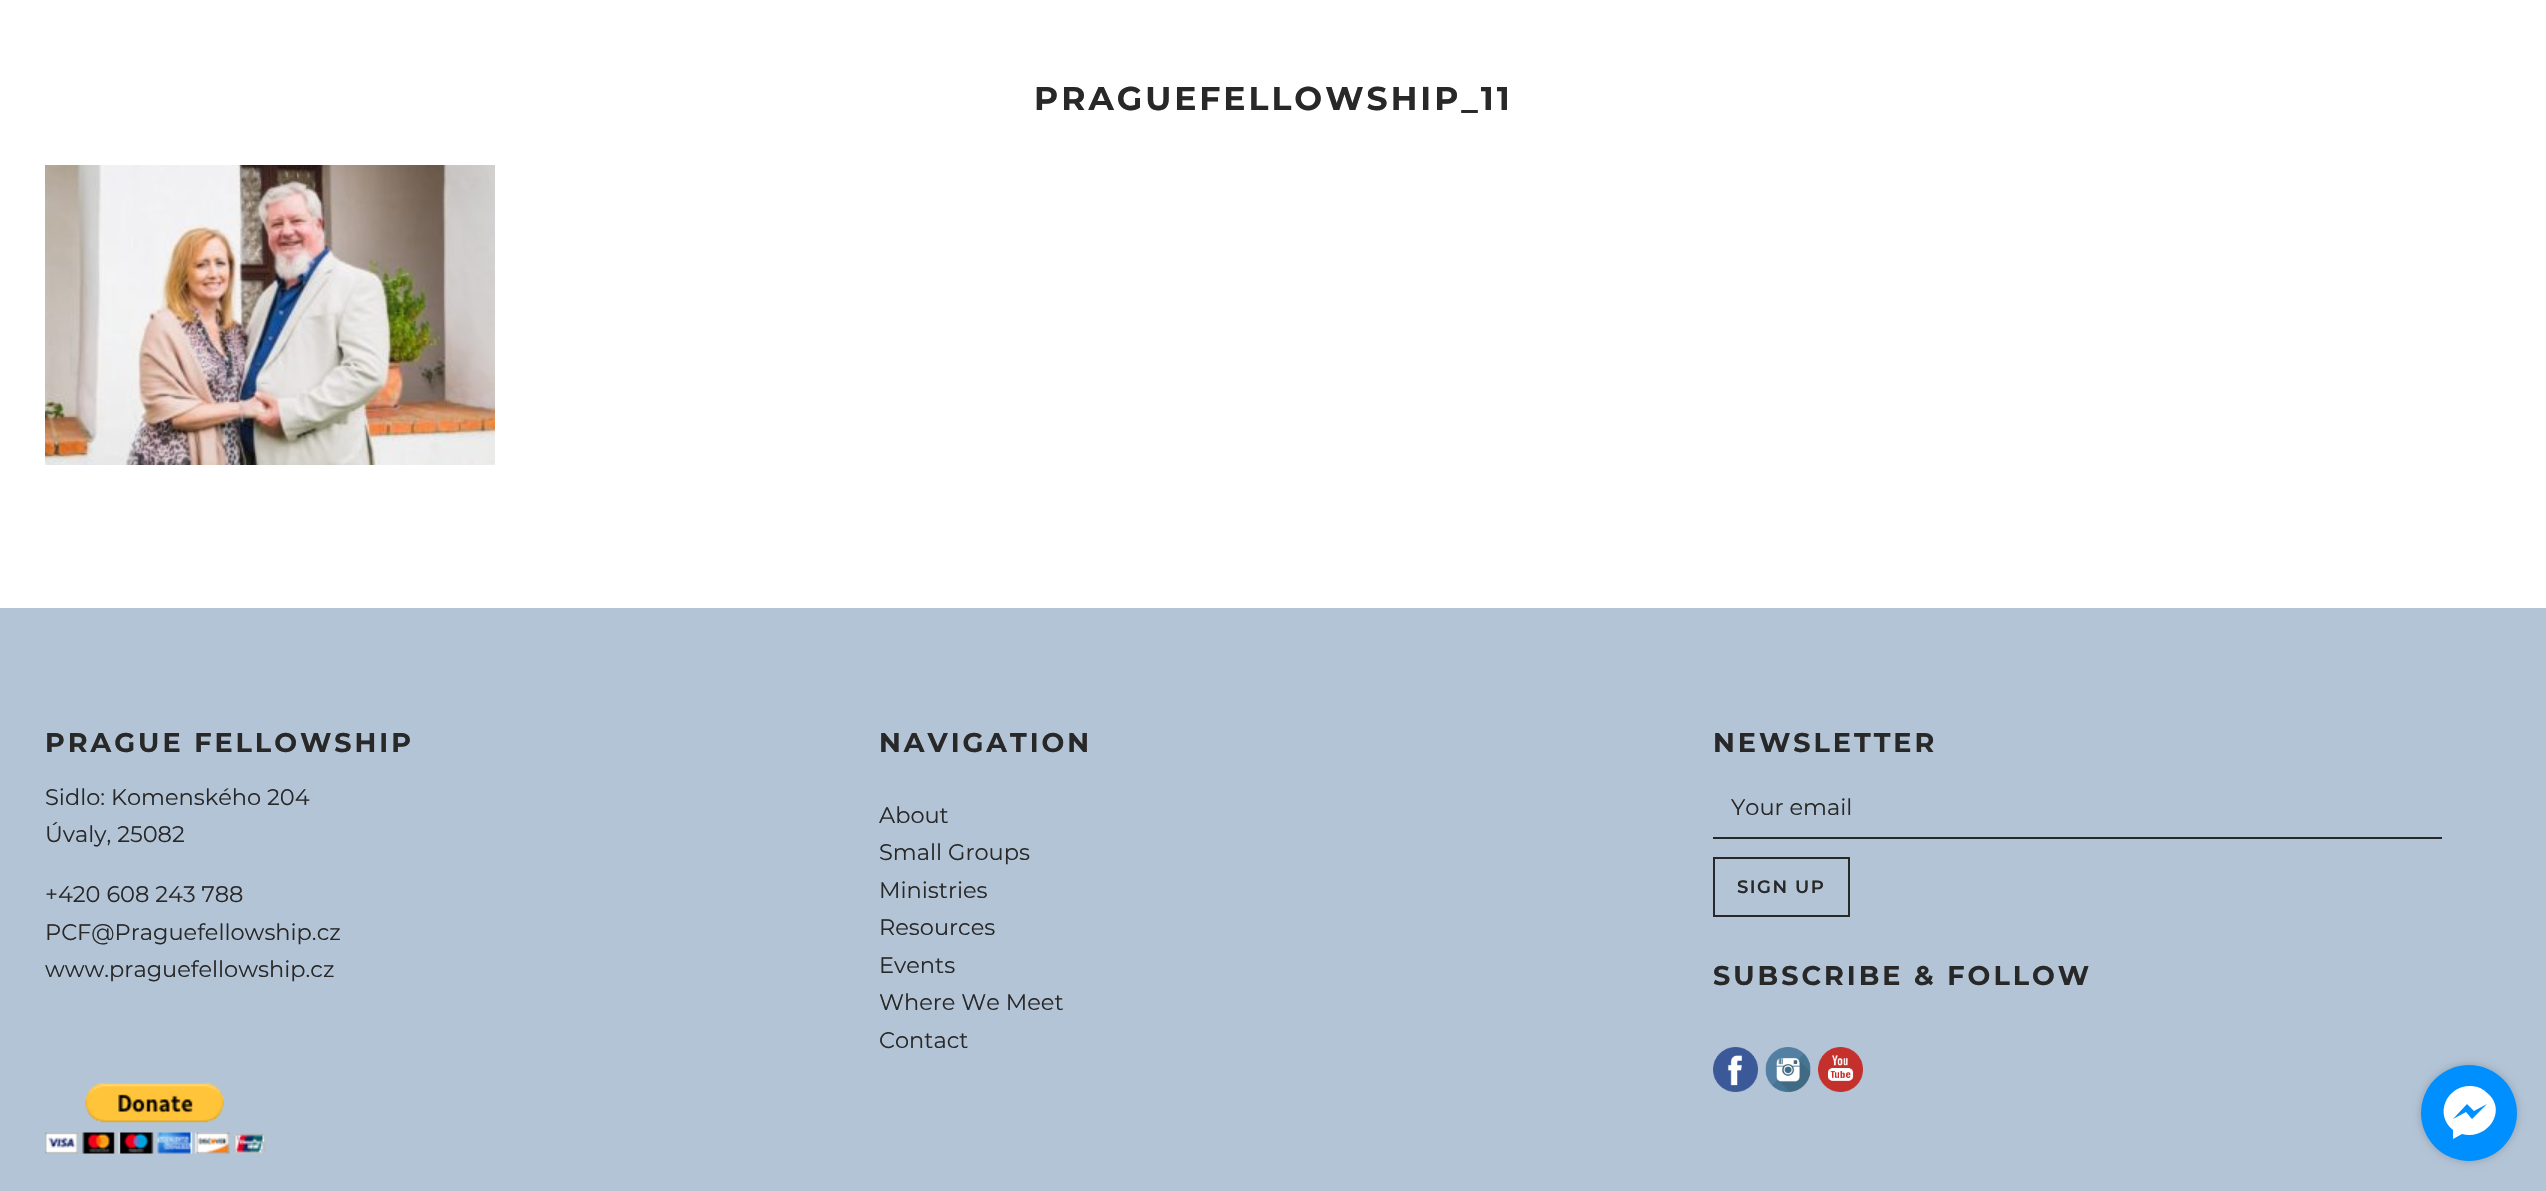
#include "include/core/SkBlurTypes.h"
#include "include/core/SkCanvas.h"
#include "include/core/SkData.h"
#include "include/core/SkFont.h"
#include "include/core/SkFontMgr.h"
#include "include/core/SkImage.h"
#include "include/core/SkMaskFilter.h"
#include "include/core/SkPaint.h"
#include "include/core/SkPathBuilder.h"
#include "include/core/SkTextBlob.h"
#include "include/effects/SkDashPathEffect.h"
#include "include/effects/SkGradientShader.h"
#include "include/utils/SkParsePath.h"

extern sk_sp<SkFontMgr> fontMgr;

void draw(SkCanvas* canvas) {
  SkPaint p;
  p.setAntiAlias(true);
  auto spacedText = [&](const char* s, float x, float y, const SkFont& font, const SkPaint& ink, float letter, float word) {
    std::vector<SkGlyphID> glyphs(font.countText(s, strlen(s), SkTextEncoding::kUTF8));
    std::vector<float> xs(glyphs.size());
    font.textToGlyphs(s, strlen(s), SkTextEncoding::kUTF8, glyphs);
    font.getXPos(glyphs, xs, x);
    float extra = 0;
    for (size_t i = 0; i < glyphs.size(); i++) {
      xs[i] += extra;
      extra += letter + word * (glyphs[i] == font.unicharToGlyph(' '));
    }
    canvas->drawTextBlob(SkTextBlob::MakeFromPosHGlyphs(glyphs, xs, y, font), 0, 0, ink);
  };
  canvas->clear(SK_ColorWHITE);
  canvas->drawImageRect(SkImages::DeferredFromEncodedData(SkData::MakeFromFileName("images/1.png")), SkRect::MakeLTRB(45, 165, 495, 465), SkSamplingOptions());
  p.setColor(SkColorSetRGB(179, 196, 214));
  canvas->drawRect(SkRect::MakeLTRB(0, 608, 2546, 1191), p);
  canvas->drawImageRect(SkImages::DeferredFromEncodedData(SkData::MakeFromFileName("images/2.png")), SkRect::MakeLTRB(45, 1083, 266, 1154), SkSamplingOptions());
  p.setColor(SkColorSetRGB(40, 40, 40));
  canvas->drawRect(SkRect::MakeLTRB(1713, 837, 2442, 839), p);
  p.setStyle(SkPaint::kStroke_Style);
  p.setStrokeWidth(2);
  canvas->drawRect(SkRect::MakeLTRB(1714, 858, 1849, 916), p);
  canvas->drawImageRect(SkImages::DeferredFromEncodedData(SkData::MakeFromFileName("images/3.png")), SkRect::MakeLTRB(1713, 1047, 1758, 1092), SkSamplingOptions());
  canvas->drawImageRect(SkImages::DeferredFromEncodedData(SkData::MakeFromFileName("images/4.png")), SkRect::MakeLTRB(1765, 1047, 1811, 1092), SkSamplingOptions());
  canvas->drawImageRect(SkImages::DeferredFromEncodedData(SkData::MakeFromFileName("images/5.png")), SkRect::MakeLTRB(1818, 1047, 1863, 1092), SkSamplingOptions());
  p.setStyle(SkPaint::kFill_Style);
  p.setColor(SkColorSetARGB(51, 0, 0, 0));
  p.setMaskFilter(SkMaskFilter::MakeBlur(kNormal_SkBlurStyle, 4));
  canvas->drawRoundRect(SkRect::MakeLTRB(2421, 1065, 2517, 1161), 48, 48, p);
  p.setMaskFilter(nullptr);
  p.setColor(SkColorSetRGB(0, 143, 255));
  canvas->drawCircle(2469, 1113, 48, p);
  p.setColor(SK_ColorWHITE);
  canvas->drawPath(SkPathBuilder().moveTo(2470, 1086).cubicTo(2446, 1086, 2434, 1115, 2453, 1130).lineTo(2453, 1139).lineTo(2462, 1134).cubicTo(2488, 1141, 2509, 1109, 2486, 1092).cubicTo(2482, 1088, 2476, 1086, 2470, 1086).close().moveTo(2472, 1119).lineTo(2466, 1112).lineTo(2453, 1119).lineTo(2467, 1104).lineTo(2474, 1111).lineTo(2487, 1104).close().detach(), p);
  SkFont font1(fontMgr->matchFamilyStyle("Montserrat", SkFontStyle::Bold()), 33);
  font1.setSubpixel(true);
  p.setColor(SkColorSetRGB(40, 40, 40));
  spacedText("PRAGUEFELLOWSHIP_11", 1034, 110, font1, p, 3, 0);
  SkFont font2(fontMgr->matchFamilyStyle("Montserrat", SkFontStyle::Bold()), 27);
  font2.setSubpixel(true);
  spacedText("PRAGUE FELLOWSHIP", 45, 752, font2, p, 3, 0);
  SkFont font3(fontMgr->matchFamilyStyle("Montserrat", SkFontStyle::Normal()), 22.5f);
  font3.setSubpixel(true);
  canvas->drawString("Sidlo: Komenského 204", 45, 805, font3, p);
  canvas->drawString("Úvaly, 25082", 45, 842, font3, p);
  canvas->drawString("+420 608 243 788", 45, 902, font3, p);
  canvas->drawString("PCF@Praguefellowship.cz", 45, 940, font3, p);
  canvas->drawString("www.praguefellowship.cz", 45, 977, font3, p);
  spacedText("NAVIGATION", 879, 752, font2, p, 3, 0);
  canvas->drawString("About", 879, 823, font3, p);
  canvas->drawString("Small Groups", 879, 860, font3, p);
  canvas->drawString("Ministries", 879, 898, font3, p);
  canvas->drawString("Resources", 879, 935, font3, p);
  canvas->drawString("Events", 879, 973, font3, p);
  canvas->drawString("Where We Meet", 879, 1010, font3, p);
  canvas->drawString("Contact", 879, 1048, font3, p);
  spacedText("NEWSLETTER", 1713, 752, font2, p, 3, 0);
  canvas->drawString("Your email", 1731, 815, font3, p);
  SkFont font4(fontMgr->matchFamilyStyle("Montserrat", SkFontStyle(600, SkFontStyle::kNormal_Width, SkFontStyle::kUpright_Slant)), 18);
  font4.setSubpixel(true);
  spacedText("SIGN UP", 1737, 893, font4, p, 1.5f, 0);
  spacedText("SUBSCRIBE & FOLLOW", 1713, 985, font2, p, 3, 0);
}
